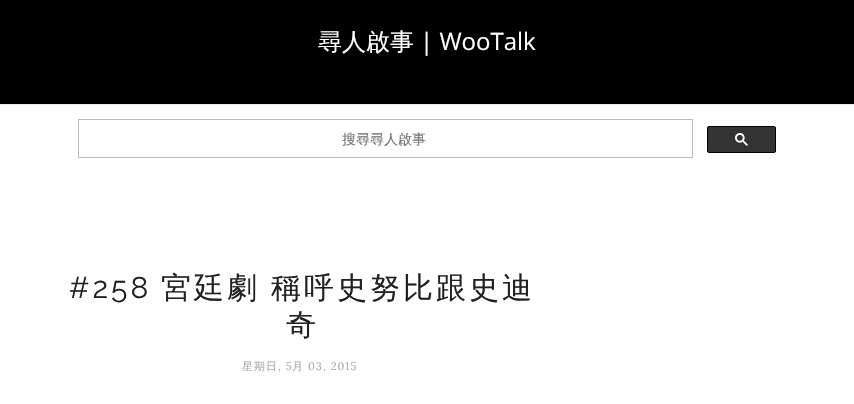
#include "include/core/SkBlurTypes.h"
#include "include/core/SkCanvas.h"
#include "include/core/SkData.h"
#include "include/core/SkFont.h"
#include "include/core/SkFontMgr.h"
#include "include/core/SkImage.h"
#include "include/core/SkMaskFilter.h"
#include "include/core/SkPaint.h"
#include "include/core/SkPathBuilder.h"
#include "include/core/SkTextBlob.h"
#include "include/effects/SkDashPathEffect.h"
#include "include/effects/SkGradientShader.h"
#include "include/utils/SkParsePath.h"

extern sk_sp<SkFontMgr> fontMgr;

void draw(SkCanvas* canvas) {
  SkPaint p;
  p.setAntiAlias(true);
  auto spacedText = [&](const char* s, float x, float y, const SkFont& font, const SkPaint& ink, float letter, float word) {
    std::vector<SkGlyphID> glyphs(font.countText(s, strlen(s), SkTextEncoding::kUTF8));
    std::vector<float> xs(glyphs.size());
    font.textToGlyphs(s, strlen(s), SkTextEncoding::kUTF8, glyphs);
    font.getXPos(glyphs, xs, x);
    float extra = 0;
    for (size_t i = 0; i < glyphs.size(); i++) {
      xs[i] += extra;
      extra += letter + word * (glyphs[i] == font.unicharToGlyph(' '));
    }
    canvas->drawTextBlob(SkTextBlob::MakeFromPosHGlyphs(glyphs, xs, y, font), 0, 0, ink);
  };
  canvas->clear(SK_ColorWHITE);
  p.setColor(SK_ColorBLACK);
  canvas->drawRect(SkRect::MakeLTRB(0, 0, 854, 104), p);
  p.setColor(SkColorSetRGB(238, 238, 238));
  canvas->drawRect(SkRect::MakeLTRB(0, 104, 854, 105), p);
  p.setStyle(SkPaint::kStroke_Style);
  p.setStrokeWidth(1);
  p.setColor(SkColorSetRGB(187, 187, 187));
  canvas->drawRect(SkRect::MakeLTRB(78.5f, 119.5f, 692.5f, 157.5f), p);
  p.setStyle(SkPaint::kFill_Style);
  p.setColor(SkColorSetRGB(51, 51, 51));
  canvas->drawRoundRect(SkRect::MakeLTRB(707.5f, 126.5f, 775.5f, 152.5f), 1.5f, 1.5f, p);
  p.setStyle(SkPaint::kStroke_Style);
  p.setColor(SK_ColorBLACK);
  canvas->drawRoundRect(SkRect::MakeLTRB(707.5f, 126.5f, 775.5f, 152.5f), 1.5f, 1.5f, p);
  canvas->drawImageRect(SkImages::DeferredFromEncodedData(SkData::MakeFromFileName("images/1.png")), SkRect::MakeLTRB(735, 133, 748, 146), SkSamplingOptions());
  SkFont font1(fontMgr->matchFamilyStyle("WenQuanYi Zen Hei", SkFontStyle(500, SkFontStyle::kNormal_Width, SkFontStyle::kUpright_Slant)), 24);
  font1.setSubpixel(true);
  p.setStyle(SkPaint::kFill_Style);
  p.setColor(SK_ColorWHITE);
  canvas->drawString("尋人啟事", 318, 50, font1, p);
  SkFont font2(fontMgr->matchFamilyStyle("Open Sans", SkFontStyle::Normal()), 24);
  font2.setSubpixel(true);
  canvas->drawString("| WooTalk", 420, 50, font2, p);
  SkFont font3(fontMgr->matchFamilyStyle("WenQuanYi Zen Hei", SkFontStyle(500, SkFontStyle::kNormal_Width, SkFontStyle::kUpright_Slant)), 14);
  font3.setSubpixel(true);
  p.setColor(SkColorSetRGB(117, 117, 117));
  canvas->drawString("搜尋尋人啟事", 342, 144, font3, p);
  SkFont font4(fontMgr->matchFamilyStyle("Raleway", SkFontStyle::Normal()), 30);
  font4.setSubpixel(true);
  p.setColor(SkColorSetRGB(34, 34, 34));
  spacedText("#258", 69, 298, font4, p, 3, 0);
  SkFont font5(fontMgr->matchFamilyStyle("WenQuanYi Zen Hei", SkFontStyle(500, SkFontStyle::kNormal_Width, SkFontStyle::kUpright_Slant)), 30);
  font5.setSubpixel(true);
  spacedText("宮廷劇 稱呼史努比跟史迪", 161, 298, font5, p, 3, -1);
  spacedText("奇", 286, 335, font5, p, 3, 0);
  SkFont font6(fontMgr->matchFamilyStyle("WenQuanYi Zen Hei", SkFontStyle(500, SkFontStyle::kNormal_Width, SkFontStyle::kUpright_Slant)), 11);
  font6.setSubpixel(true);
  p.setColor(SkColorSetRGB(170, 170, 170));
  spacedText("星期日", 242, 370, font6, p, 1, 0);
  SkFont font7(fontMgr->matchFamilyStyle("Lora", SkFontStyle::Normal()), 11);
  font7.setSubpixel(true);
  spacedText(", 5", 278, 370, font7, p, 1, 0);
  spacedText("月", 292, 370, font6, p, 1, 0);
  spacedText("03, 2015", 308, 370, font7, p, 1, 0);
}
